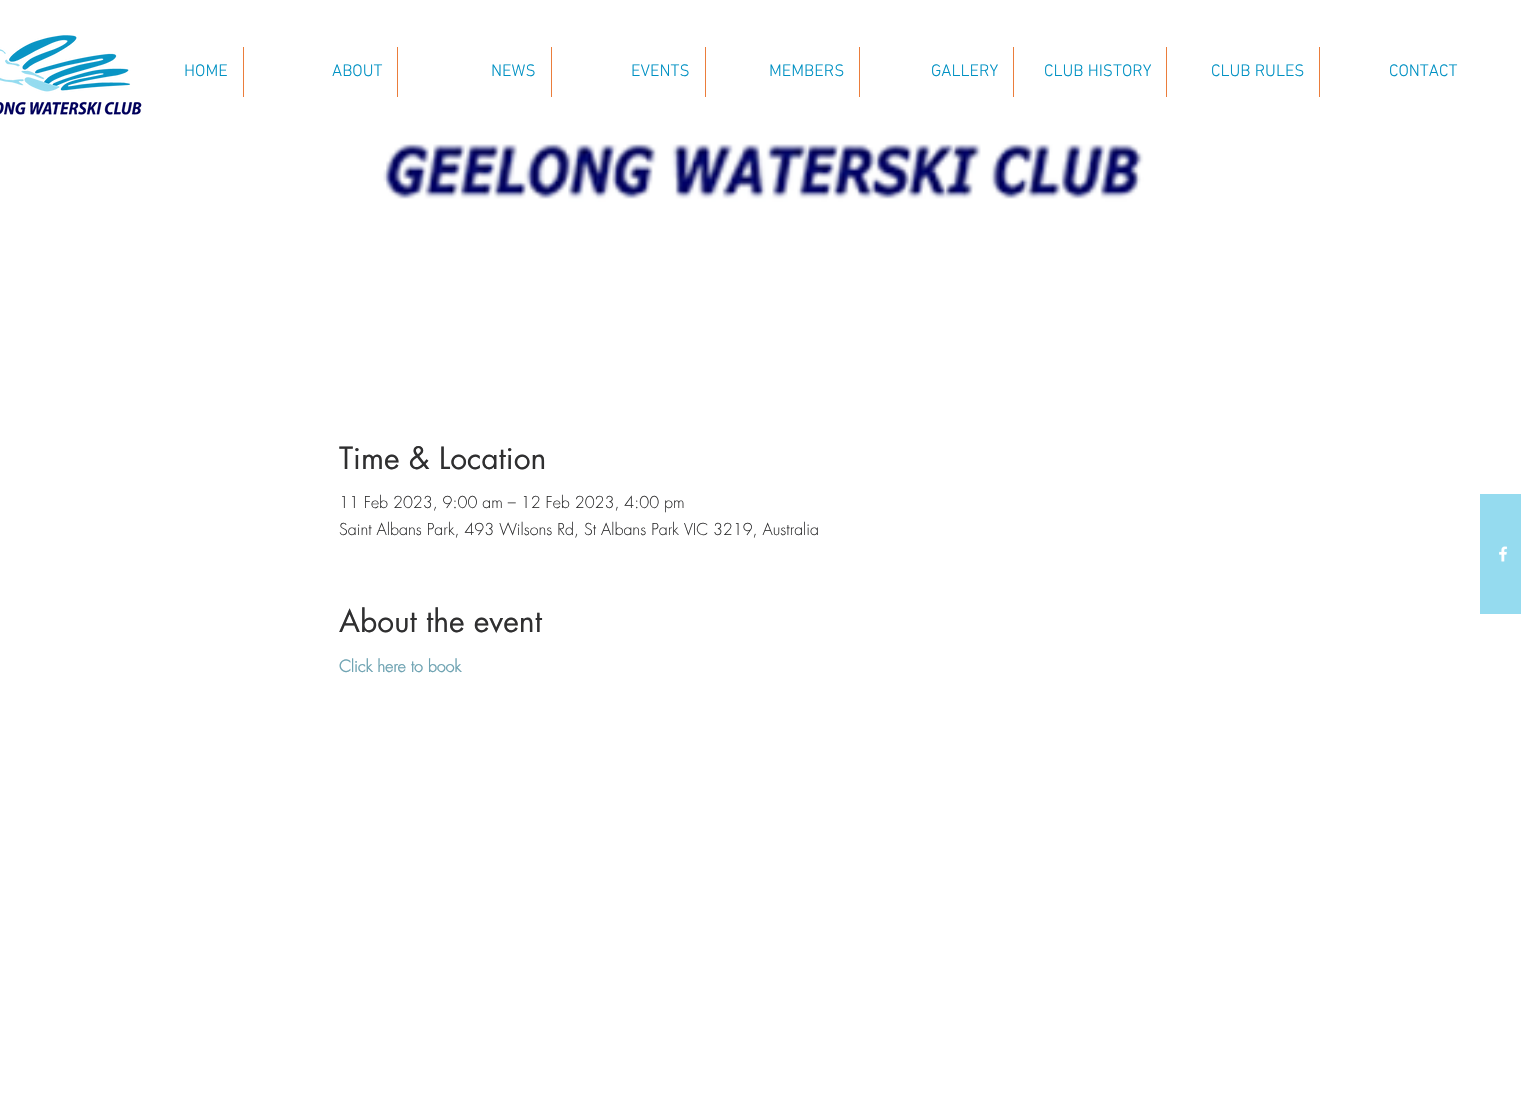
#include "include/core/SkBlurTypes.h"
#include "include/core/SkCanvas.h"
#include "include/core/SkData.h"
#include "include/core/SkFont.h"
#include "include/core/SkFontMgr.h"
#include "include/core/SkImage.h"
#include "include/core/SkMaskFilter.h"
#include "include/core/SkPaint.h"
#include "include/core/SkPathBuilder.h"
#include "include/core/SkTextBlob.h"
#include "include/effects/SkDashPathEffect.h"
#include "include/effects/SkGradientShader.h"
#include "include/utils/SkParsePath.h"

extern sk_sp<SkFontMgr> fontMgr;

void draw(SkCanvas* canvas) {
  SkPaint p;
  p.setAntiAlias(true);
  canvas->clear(SK_ColorWHITE);
  canvas->drawImageRect(SkImages::DeferredFromEncodedData(SkData::MakeFromFileName("images/1.png")), SkRect::MakeLTRB(0, 35, 142, 115), SkSamplingOptions());
  p.setColor(SkColorSetRGB(235, 125, 59));
  canvas->drawRect(SkRect::MakeLTRB(243, 47, 244, 97), p);
  canvas->drawRect(SkRect::MakeLTRB(397, 47, 398, 97), p);
  canvas->drawRect(SkRect::MakeLTRB(551, 47, 552, 97), p);
  canvas->drawRect(SkRect::MakeLTRB(705, 47, 706, 97), p);
  canvas->drawRect(SkRect::MakeLTRB(859, 47, 860, 97), p);
  canvas->drawRect(SkRect::MakeLTRB(1013, 47, 1014, 97), p);
  canvas->drawRect(SkRect::MakeLTRB(1166, 47, 1167, 97), p);
  canvas->drawRect(SkRect::MakeLTRB(1319, 47, 1320, 97), p);
  canvas->drawImageRect(SkImages::DeferredFromEncodedData(SkData::MakeFromFileName("images/2.png")), SkRect::MakeLTRB(271, 140, 1250, 388), SkSamplingOptions());
  p.setColor(SkColorSetRGB(149, 219, 239));
  canvas->drawRect(SkRect::MakeLTRB(1480, 494, 1521, 614), p);
  canvas->drawImageRect(SkImages::DeferredFromEncodedData(SkData::MakeFromFileName("images/3.png")), SkRect::MakeLTRB(1499, 546, 1508, 562), SkSamplingOptions());
  SkFont font1(fontMgr->matchFamilyStyle("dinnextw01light", SkFontStyle(300, SkFontStyle::kNormal_Width, SkFontStyle::kUpright_Slant)), 17);
  font1.setSubpixel(true);
  p.setColor(SkColorSetRGB(0, 145, 195));
  canvas->drawString("HOME", 184, 76, font1, p);
  canvas->drawString("ABOUT", 332, 76, font1, p);
  canvas->drawString("NEWS", 491, 76, font1, p);
  canvas->drawString("EVENTS", 631, 76, font1, p);
  canvas->drawString("MEMBERS", 769, 76, font1, p);
  canvas->drawString("GALLERY", 931, 76, font1, p);
  canvas->drawString("CLUB HISTORY", 1044, 76, font1, p);
  canvas->drawString("CLUB RULES", 1211, 76, font1, p);
  canvas->drawString("CONTACT", 1389, 76, font1, p);
  SkFont font2(fontMgr->matchFamilyStyle("futura", SkFontStyle::Normal()), 30);
  font2.setSubpixel(true);
  p.setColor(SkColorSetRGB(47, 47, 48));
  canvas->drawString("Time & Location", 339, 469, font2, p);
  SkFont font3(fontMgr->matchFamilyStyle("futura", SkFontStyle(300, SkFontStyle::kNormal_Width, SkFontStyle::kUpright_Slant)), 16);
  font3.setSubpixel(true);
  canvas->drawString("11 Feb 2023, 9:00 am – 12 Feb 2023, 4:00 pm", 339, 508, font3, p);
  canvas->drawString("Saint Albans Park, 493 Wilsons Rd, St Albans Park VIC 3219, Australia", 339, 535, font3, p);
  canvas->drawString("About the event", 339, 632, font2, p);
  SkFont font4(fontMgr->matchFamilyStyle("futura", SkFontStyle::Bold()), 16);
  font4.setSubpixel(true);
  p.setColor(SkColorSetRGB(112, 164, 179));
  canvas->drawString("Click here to book", 339, 672, font4, p);
}
